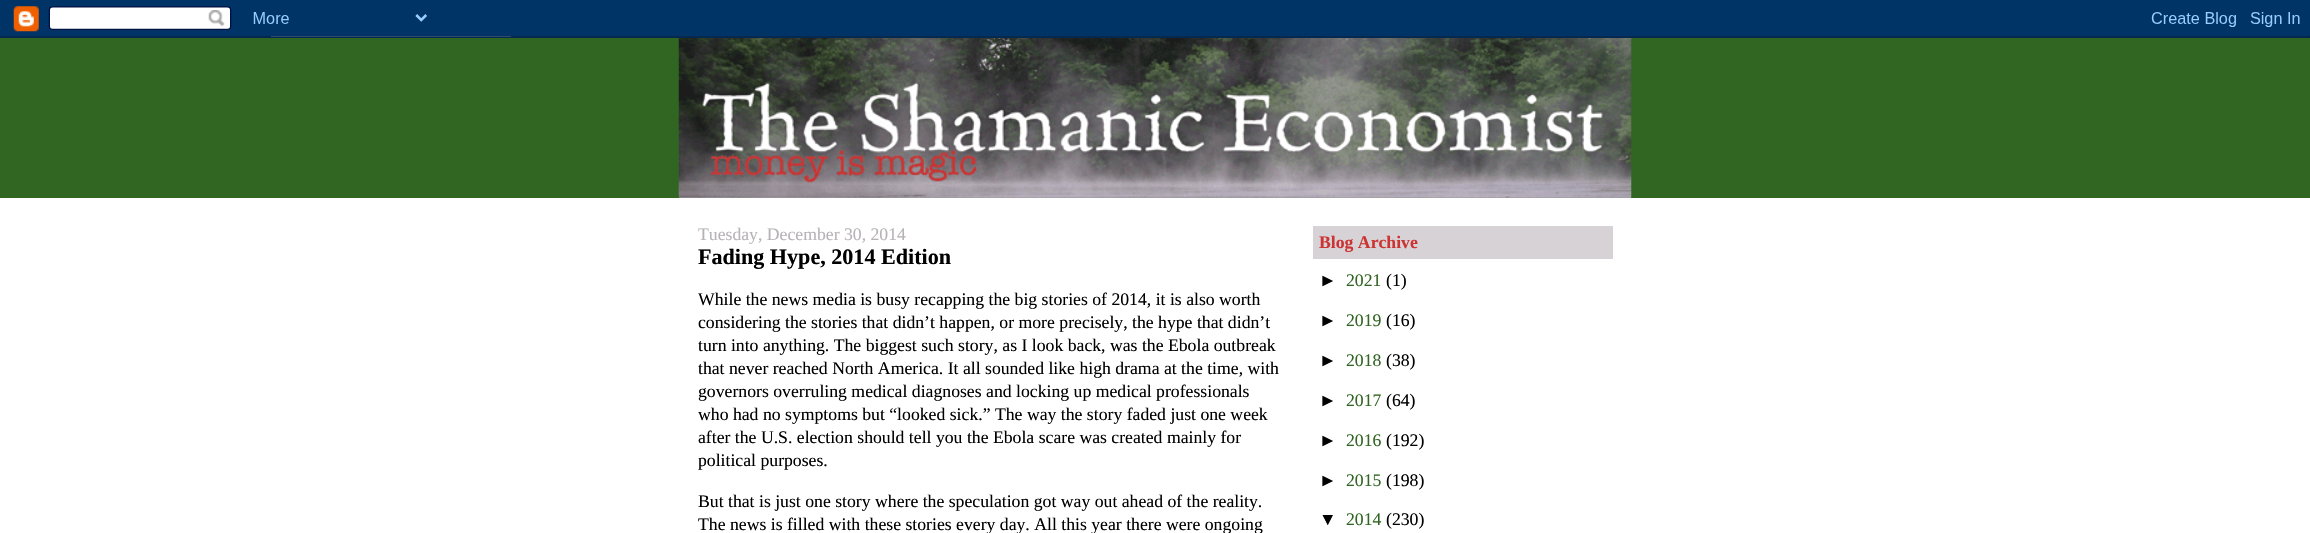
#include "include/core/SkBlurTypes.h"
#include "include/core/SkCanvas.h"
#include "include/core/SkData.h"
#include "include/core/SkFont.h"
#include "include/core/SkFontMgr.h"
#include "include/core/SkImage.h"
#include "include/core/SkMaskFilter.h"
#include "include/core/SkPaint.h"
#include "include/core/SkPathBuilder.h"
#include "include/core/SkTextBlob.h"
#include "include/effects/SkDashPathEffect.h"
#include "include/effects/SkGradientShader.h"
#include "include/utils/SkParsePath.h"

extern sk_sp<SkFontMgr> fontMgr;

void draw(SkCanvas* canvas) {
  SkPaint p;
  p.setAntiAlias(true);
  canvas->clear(SK_ColorWHITE);
  canvas->drawImageRect(SkImages::DeferredFromEncodedData(SkData::MakeFromFileName("images/1.png")), SkRect::MakeLTRB(0, 0, 2310, 38), SkSamplingOptions());
  p.setColor(SkColorSetRGB(49, 102, 34));
  canvas->drawRect(SkRect::MakeLTRB(0, 38, 2310, 198), p);
  p.setColor(SkColorSetRGB(153, 153, 153));
  canvas->drawRect(SkRect::MakeLTRB(679, 197, 1631, 198), p);
  canvas->drawImageRect(SkImages::DeferredFromEncodedData(SkData::MakeFromFileName("images/2.png")), SkRect::MakeLTRB(678, 38, 1632, 198), SkSamplingOptions());
  p.setColor(SkColorSetRGB(215, 210, 214));
  canvas->drawRect(SkRect::MakeLTRB(1313, 226, 1613, 259), p);
  canvas->save();
  canvas->clipRect(SkRect::MakeLTRB(698, 198, 1283, 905));
  SkFont font1(fontMgr->matchFamilyStyle("Liberation Serif", SkFontStyle::Normal()), 17.7f);
  font1.setSubpixel(true);
  p.setColor(SkColorSetRGB(183, 178, 182));
  canvas->drawString("Tuesday, December 30, 2014", 698, 240, font1, p);
  canvas->restore();
  SkFont font2(fontMgr->matchFamilyStyle("Liberation Serif", SkFontStyle::Bold()), 22.1f);
  font2.setSubpixel(true);
  p.setColor(SK_ColorBLACK);
  canvas->drawString("Fading Hype, 2014 Edition", 698, 264, font2, p);
  canvas->drawString("While the news media is busy recapping the big stories of 2014, it is also worth", 698, 305, font1, p);
  canvas->drawString("considering the stories that didn’t happen, or more precisely, the hype that didn’t", 698, 328, font1, p);
  canvas->drawString("turn into anything. The biggest such story, as I look back, was the Ebola outbreak", 698, 351, font1, p);
  canvas->drawString("that never reached North America. It all sounded like high drama at the time, with", 698, 374, font1, p);
  canvas->drawString("governors overruling medical diagnoses and locking up medical professionals", 698, 397, font1, p);
  canvas->drawString("who had no symptoms but “looked sick.” The way the story faded just one week", 698, 420, font1, p);
  canvas->drawString("after the U.S. election should tell you the Ebola scare was created mainly for", 698, 443, font1, p);
  canvas->drawString("political purposes.", 698, 466, font1, p);
  canvas->drawString("But that is just one story where the speculation got way out ahead of the reality.", 698, 507, font1, p);
  canvas->save();
  canvas->clipRect(SkRect::MakeLTRB(698, 198, 1283, 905));
  canvas->drawString("The news is filled with these stories every day. All this year there were ongoing", 698, 530, font1, p);
  canvas->restore();
  SkFont font3(fontMgr->matchFamilyStyle("Liberation Serif", SkFontStyle::Bold()), 17.7f);
  font3.setSubpixel(true);
  p.setColor(SkColorSetRGB(204, 51, 51));
  canvas->drawString("Blog Archive", 1319, 248, font3, p);
  SkFont font4(fontMgr->matchFamilyStyle("Liberation Sans", SkFontStyle::Normal()), 17.7f);
  font4.setSubpixel(true);
  p.setColor(SK_ColorBLACK);
  canvas->drawString("►", 1319, 286, font4, p);
  p.setColor(SkColorSetRGB(49, 102, 34));
  canvas->drawString("2021", 1346, 286, font1, p);
  p.setColor(SK_ColorBLACK);
  canvas->drawString("(1)", 1386, 286, font1, p);
  canvas->drawString("►", 1319, 326, font4, p);
  p.setColor(SkColorSetRGB(49, 102, 34));
  canvas->drawString("2019", 1346, 326, font1, p);
  p.setColor(SK_ColorBLACK);
  canvas->drawString("(16)", 1386, 326, font1, p);
  canvas->drawString("►", 1319, 366, font4, p);
  p.setColor(SkColorSetRGB(49, 102, 34));
  canvas->drawString("2018", 1346, 366, font1, p);
  p.setColor(SK_ColorBLACK);
  canvas->drawString("(38)", 1386, 366, font1, p);
  canvas->drawString("►", 1319, 406, font4, p);
  p.setColor(SkColorSetRGB(49, 102, 34));
  canvas->drawString("2017", 1346, 406, font1, p);
  p.setColor(SK_ColorBLACK);
  canvas->drawString("(64)", 1386, 406, font1, p);
  canvas->drawString("►", 1319, 446, font4, p);
  p.setColor(SkColorSetRGB(49, 102, 34));
  canvas->drawString("2016", 1346, 446, font1, p);
  p.setColor(SK_ColorBLACK);
  canvas->drawString("(192)", 1386, 446, font1, p);
  canvas->drawString("►", 1319, 486, font4, p);
  p.setColor(SkColorSetRGB(49, 102, 34));
  canvas->drawString("2015", 1346, 486, font1, p);
  p.setColor(SK_ColorBLACK);
  canvas->drawString("(198)", 1386, 486, font1, p);
  canvas->drawString("▼", 1319, 525, font4, p);
  p.setColor(SkColorSetRGB(49, 102, 34));
  canvas->drawString("2014", 1346, 525, font1, p);
  p.setColor(SK_ColorBLACK);
  canvas->drawString("(230)", 1386, 525, font1, p);
}
